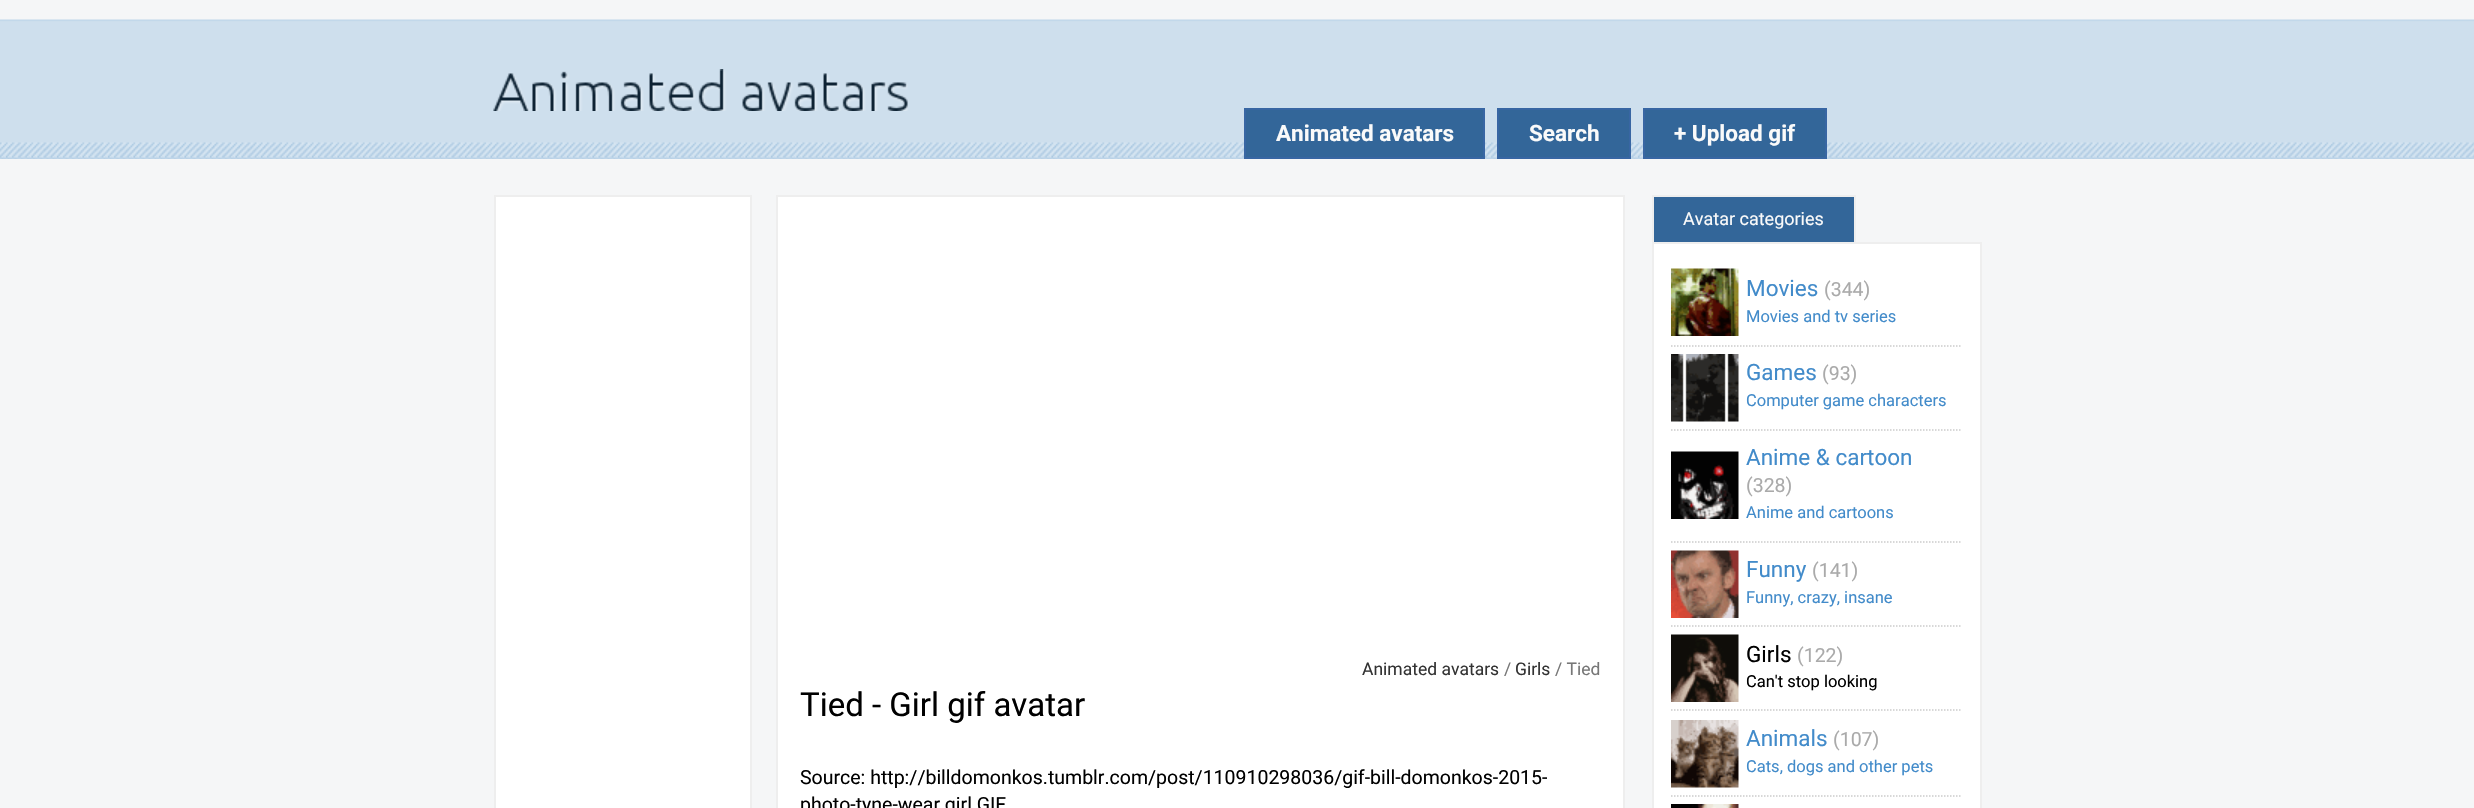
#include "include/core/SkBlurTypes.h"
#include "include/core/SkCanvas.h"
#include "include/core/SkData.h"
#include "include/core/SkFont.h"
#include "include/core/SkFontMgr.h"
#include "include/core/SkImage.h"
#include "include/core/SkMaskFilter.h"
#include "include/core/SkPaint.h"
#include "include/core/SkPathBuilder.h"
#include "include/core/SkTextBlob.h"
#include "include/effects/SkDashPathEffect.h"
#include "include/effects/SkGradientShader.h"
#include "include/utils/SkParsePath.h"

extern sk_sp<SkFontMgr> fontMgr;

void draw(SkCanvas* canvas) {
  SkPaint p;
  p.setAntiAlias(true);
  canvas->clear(SkColorSetRGB(245, 246, 247));
  canvas->drawImageRect(SkImages::DeferredFromEncodedData(SkData::MakeFromFileName("images/1.png")), SkRect::MakeLTRB(0, 19, 2474, 159), SkSamplingOptions());
  canvas->drawImageRect(SkImages::DeferredFromEncodedData(SkData::MakeFromFileName("images/2.png")), SkRect::MakeLTRB(493, 69, 908, 111), SkSamplingOptions());
  p.setColor(SkColorSetRGB(51, 102, 153));
  canvas->drawRect(SkRect::MakeLTRB(1245, 109, 1484, 158), p);
  p.setStyle(SkPaint::kStroke_Style);
  p.setStrokeWidth(2);
  p.setColor(SkColorSetRGB(56, 102, 163));
  canvas->drawRect(SkRect::MakeLTRB(1245, 109, 1484, 158), p);
  p.setStyle(SkPaint::kFill_Style);
  p.setColor(SkColorSetRGB(51, 102, 153));
  canvas->drawRect(SkRect::MakeLTRB(1498, 109, 1630, 158), p);
  p.setStyle(SkPaint::kStroke_Style);
  p.setColor(SkColorSetRGB(56, 102, 163));
  canvas->drawRect(SkRect::MakeLTRB(1498, 109, 1630, 158), p);
  p.setStyle(SkPaint::kFill_Style);
  p.setColor(SkColorSetRGB(51, 102, 153));
  canvas->drawRect(SkRect::MakeLTRB(1644, 109, 1826, 158), p);
  p.setStyle(SkPaint::kStroke_Style);
  p.setColor(SkColorSetRGB(56, 102, 163));
  canvas->drawRect(SkRect::MakeLTRB(1644, 109, 1826, 158), p);
  p.setStyle(SkPaint::kFill_Style);
  p.setColor(SK_ColorWHITE);
  canvas->drawRect(SkRect::MakeLTRB(495, 196, 751, 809), p);
  p.setStyle(SkPaint::kStroke_Style);
  p.setColor(SkColorSetRGB(238, 238, 238));
  canvas->drawRect(SkRect::MakeLTRB(495, 196, 751, 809), p);
  p.setStyle(SkPaint::kFill_Style);
  p.setColor(SK_ColorWHITE);
  canvas->drawRect(SkRect::MakeLTRB(777, 196, 1624, 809), p);
  p.setStyle(SkPaint::kStroke_Style);
  p.setColor(SkColorSetRGB(238, 238, 238));
  canvas->drawRect(SkRect::MakeLTRB(777, 196, 1624, 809), p);
  p.setStyle(SkPaint::kFill_Style);
  p.setColor(SkColorSetRGB(51, 102, 153));
  canvas->drawRect(SkRect::MakeLTRB(1654, 197, 1854, 242), p);
  p.setColor(SkColorSetRGB(238, 238, 238));
  canvas->drawRect(SkRect::MakeLTRB(1652, 195, 1856, 197), p);
  canvas->drawRect(SkRect::MakeLTRB(1854, 195, 1856, 242), p);
  canvas->drawRect(SkRect::MakeLTRB(1652, 195, 1654, 242), p);
  p.setColor(SK_ColorWHITE);
  canvas->drawRect(SkRect::MakeLTRB(1653, 243, 1981, 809), p);
  p.setStyle(SkPaint::kStroke_Style);
  p.setColor(SkColorSetRGB(238, 238, 238));
  canvas->drawRect(SkRect::MakeLTRB(1653, 243, 1981, 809), p);
  p.setStrokeWidth(1.5f);
  p.setColor(SkColorSetRGB(204, 204, 204));
  p.setPathEffect(SkDashPathEffect::Make({{1.5f, 1.5f}}, 0));
  canvas->drawPath(SkPathBuilder().moveTo(1671, 346).lineTo(1962, 346).detach(), p);
  p.setPathEffect(nullptr);
  canvas->drawImageRect(SkImages::DeferredFromEncodedData(SkData::MakeFromFileName("images/3.png")), SkRect::MakeLTRB(1671, 268, 1739, 336), SkSamplingOptions());
  p.setPathEffect(SkDashPathEffect::Make({{1.5f, 1.5f}}, 0));
  canvas->drawPath(SkPathBuilder().moveTo(1671, 430).lineTo(1962, 430).detach(), p);
  p.setPathEffect(nullptr);
  canvas->drawImageRect(SkImages::DeferredFromEncodedData(SkData::MakeFromFileName("images/4.png")), SkRect::MakeLTRB(1671, 354, 1739, 422), SkSamplingOptions());
  p.setPathEffect(SkDashPathEffect::Make({{1.5f, 1.5f}}, 0));
  canvas->drawPath(SkPathBuilder().moveTo(1671, 542).lineTo(1962, 542).detach(), p);
  p.setPathEffect(nullptr);
  canvas->drawImageRect(SkImages::DeferredFromEncodedData(SkData::MakeFromFileName("images/5.png")), SkRect::MakeLTRB(1671, 451, 1739, 519), SkSamplingOptions());
  p.setPathEffect(SkDashPathEffect::Make({{1.5f, 1.5f}}, 0));
  canvas->drawPath(SkPathBuilder().moveTo(1671, 626).lineTo(1962, 626).detach(), p);
  p.setPathEffect(nullptr);
  canvas->drawImageRect(SkImages::DeferredFromEncodedData(SkData::MakeFromFileName("images/6.png")), SkRect::MakeLTRB(1671, 550, 1739, 618), SkSamplingOptions());
  p.setPathEffect(SkDashPathEffect::Make({{1.5f, 1.5f}}, 0));
  canvas->drawPath(SkPathBuilder().moveTo(1671, 710).lineTo(1962, 710).detach(), p);
  p.setPathEffect(nullptr);
  canvas->drawImageRect(SkImages::DeferredFromEncodedData(SkData::MakeFromFileName("images/7.png")), SkRect::MakeLTRB(1671, 634, 1739, 702), SkSamplingOptions());
  p.setPathEffect(SkDashPathEffect::Make({{1.5f, 1.5f}}, 0));
  canvas->drawPath(SkPathBuilder().moveTo(1671, 796).lineTo(1962, 796).detach(), p);
  p.setPathEffect(nullptr);
  canvas->drawImageRect(SkImages::DeferredFromEncodedData(SkData::MakeFromFileName("images/8.png")), SkRect::MakeLTRB(1671, 720, 1739, 788), SkSamplingOptions());
  canvas->drawImageRect(SkImages::DeferredFromEncodedData(SkData::MakeFromFileName("images/9.png")), SkRect::MakeLTRB(1671, 804, 1739, 808), SkSamplingOptions());
  SkFont font1(fontMgr->matchFamilyStyle("Roboto", SkFontStyle::Bold()), 22.5f);
  font1.setSubpixel(true);
  p.setStyle(SkPaint::kFill_Style);
  p.setColor(SkColorSetRGB(250, 250, 250));
  canvas->drawString("Animated avatars", 1276, 141, font1, p);
  canvas->drawString("Search", 1529, 141, font1, p);
  canvas->drawString("+ Upload gif", 1674, 141, font1, p);
  SkFont font2(fontMgr->matchFamilyStyle("Roboto", SkFontStyle::Normal()), 17.5f);
  font2.setSubpixel(true);
  p.setColor(SkColorSetRGB(51, 51, 51));
  canvas->drawString("Animated avatars", 1362, 675, font2, p);
  p.setColor(SkColorSetRGB(119, 119, 119));
  canvas->drawString("/", 1504, 675, font2, p);
  p.setColor(SkColorSetRGB(51, 51, 51));
  canvas->drawString("Girls", 1515, 675, font2, p);
  p.setColor(SkColorSetRGB(119, 119, 119));
  canvas->drawString("/ Tied", 1555, 675, font2, p);
  SkFont font3(fontMgr->matchFamilyStyle("Roboto", SkFontStyle::Normal()), 33);
  font3.setSubpixel(true);
  p.setColor(SK_ColorBLACK);
  canvas->drawString("Tied - Girl gif avatar", 800, 716, font3, p);
  SkFont font4(fontMgr->matchFamilyStyle("Roboto", SkFontStyle::Normal()), 19.5f);
  font4.setSubpixel(true);
  canvas->drawString("Source: http://billdomonkos.tumblr.com/post/110910298036/gif-bill-domonkos-2015-", 800, 784, font4, p);
  canvas->drawString("photo-tyne-wear girl GIF", 800, 811, font4, p);
  SkFont font5(fontMgr->matchFamilyStyle("Roboto", SkFontStyle::Normal()), 18);
  font5.setSubpixel(true);
  p.setColor(SkColorSetRGB(250, 250, 250));
  canvas->drawString("Avatar categories", 1683, 225, font5, p);
  SkFont font6(fontMgr->matchFamilyStyle("Roboto", SkFontStyle::Normal()), 22.5f);
  font6.setSubpixel(true);
  p.setColor(SkColorSetRGB(66, 139, 202));
  canvas->drawString("Movies", 1746, 296, font6, p);
  p.setColor(SkColorSetRGB(170, 170, 170));
  canvas->drawString("(344)", 1824, 296, font4, p);
  SkFont font7(fontMgr->matchFamilyStyle("Roboto", SkFontStyle::Normal()), 16.5f);
  font7.setSubpixel(true);
  p.setColor(SkColorSetRGB(66, 139, 202));
  canvas->drawString("Movies and tv series", 1746, 322, font7, p);
  canvas->drawString("Games", 1746, 380, font6, p);
  p.setColor(SkColorSetRGB(170, 170, 170));
  canvas->drawString("(93)", 1822, 380, font4, p);
  p.setColor(SkColorSetRGB(66, 139, 202));
  canvas->drawString("Computer game characters", 1746, 406, font7, p);
  canvas->drawString("Anime & cartoon", 1746, 465, font6, p);
  p.setColor(SkColorSetRGB(170, 170, 170));
  canvas->drawString("(328)", 1746, 492, font4, p);
  p.setColor(SkColorSetRGB(66, 139, 202));
  canvas->drawString("Anime and cartoons", 1746, 518, font7, p);
  canvas->drawString("Funny", 1746, 577, font6, p);
  p.setColor(SkColorSetRGB(170, 170, 170));
  canvas->drawString("(141)", 1812, 577, font4, p);
  p.setColor(SkColorSetRGB(66, 139, 202));
  canvas->drawString("Funny, crazy, insane", 1746, 603, font7, p);
  p.setColor(SK_ColorBLACK);
  canvas->drawString("Girls", 1746, 662, font6, p);
  p.setColor(SkColorSetRGB(170, 170, 170));
  canvas->drawString("(122)", 1797, 662, font4, p);
  p.setColor(SK_ColorBLACK);
  canvas->drawString("Can't stop looking", 1746, 687, font7, p);
  p.setColor(SkColorSetRGB(66, 139, 202));
  canvas->drawString("Animals", 1746, 746, font6, p);
  p.setColor(SkColorSetRGB(170, 170, 170));
  canvas->drawString("(107)", 1833, 746, font4, p);
  p.setColor(SkColorSetRGB(66, 139, 202));
  canvas->drawString("Cats, dogs and other pets", 1746, 772, font7, p);
}
